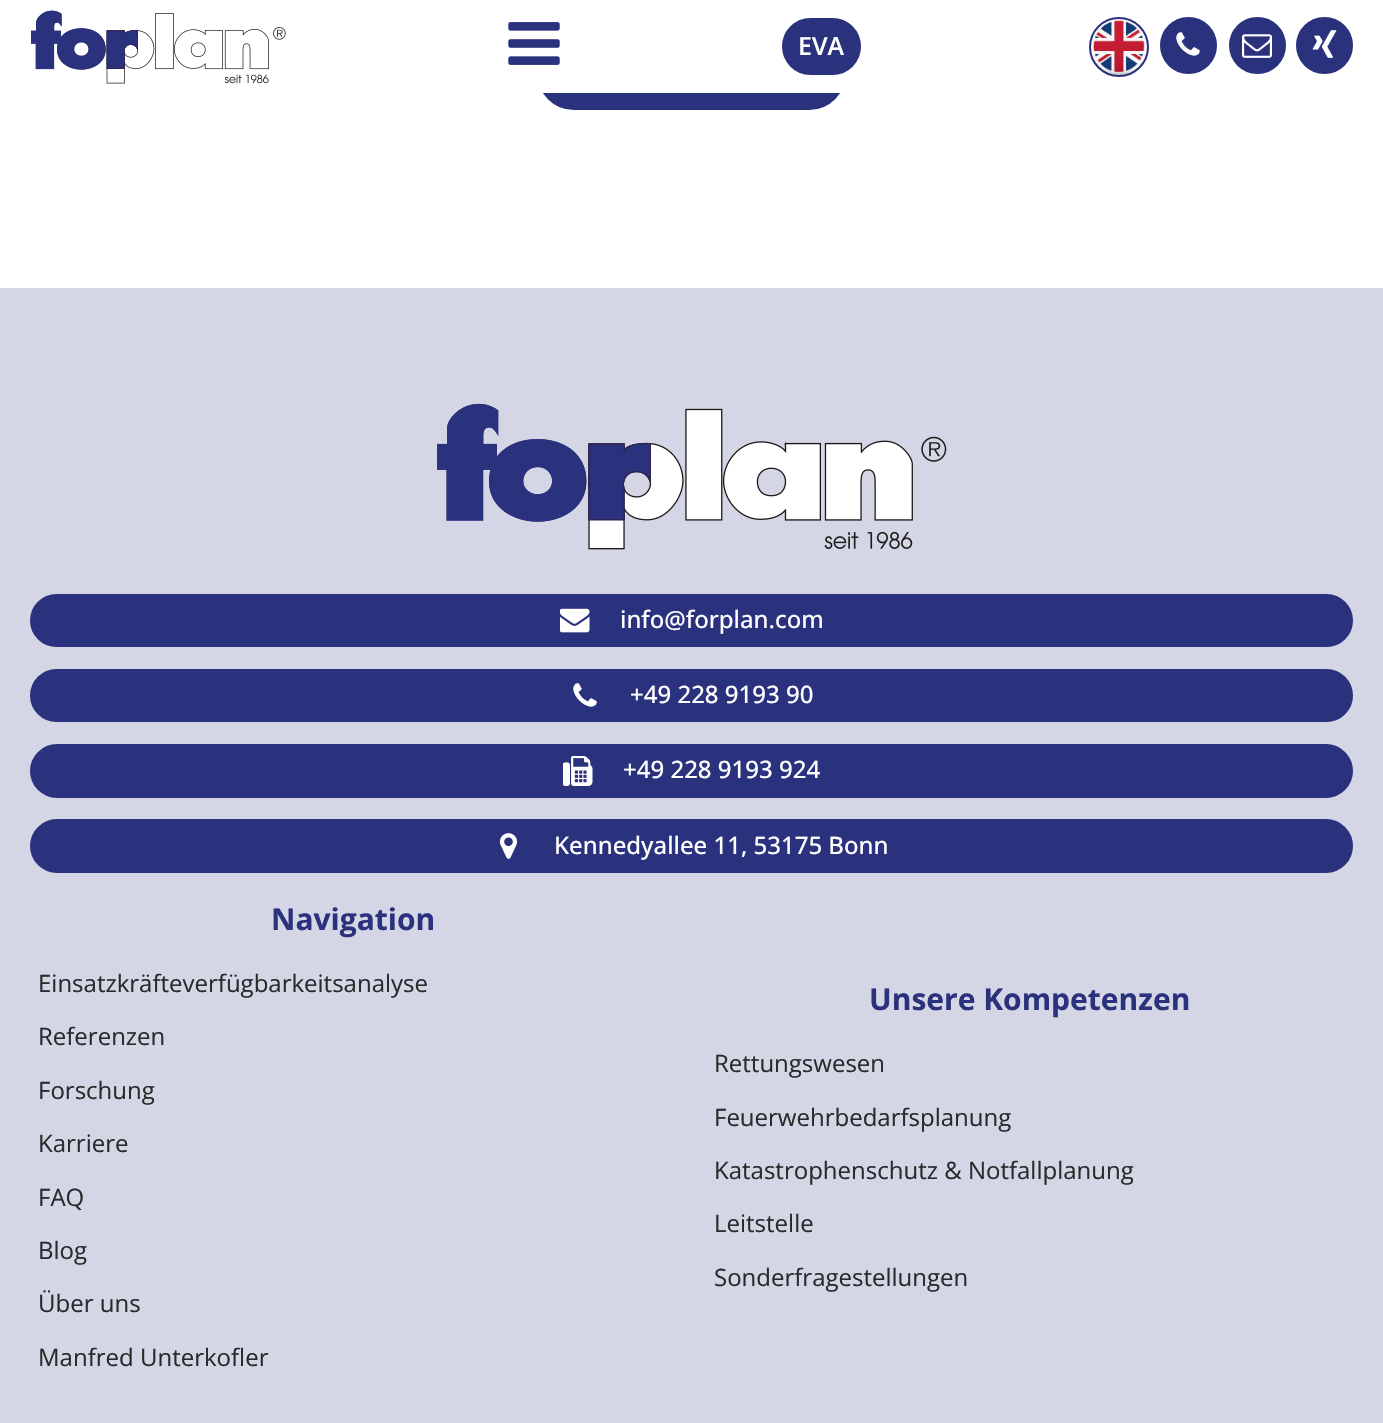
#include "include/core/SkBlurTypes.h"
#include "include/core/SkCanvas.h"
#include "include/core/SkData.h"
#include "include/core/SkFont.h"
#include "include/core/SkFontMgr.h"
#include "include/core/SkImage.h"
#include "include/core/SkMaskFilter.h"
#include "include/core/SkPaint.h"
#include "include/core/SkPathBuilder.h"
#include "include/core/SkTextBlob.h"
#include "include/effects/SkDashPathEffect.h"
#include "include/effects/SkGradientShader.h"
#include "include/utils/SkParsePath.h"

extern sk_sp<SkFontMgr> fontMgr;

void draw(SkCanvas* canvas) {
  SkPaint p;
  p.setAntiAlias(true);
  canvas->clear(SK_ColorWHITE);
  p.setColor(SkColorSetRGB(42, 49, 125));
  canvas->drawRoundRect(SkRect::MakeLTRB(538, 37, 845, 109), 36, 36, p);
  p.setStyle(SkPaint::kStroke_Style);
  p.setStrokeWidth(2);
  canvas->drawRoundRect(SkRect::MakeLTRB(538, 37, 845, 109), 36, 36, p);
  p.setStyle(SkPaint::kFill_Style);
  p.setColor(SK_ColorWHITE);
  canvas->drawRect(SkRect::MakeLTRB(537, 36, 846, 93), p);
  canvas->drawImageRect(SkImages::DeferredFromEncodedData(SkData::MakeFromFileName("images/1.png")), SkRect::MakeLTRB(31, 10, 286, 84), SkSamplingOptions());
  canvas->drawImageRect(SkImages::DeferredFromEncodedData(SkData::MakeFromFileName("images/2.png")), SkRect::MakeLTRB(508, 22, 560, 65), SkSamplingOptions());
  p.setColor(SkColorSetRGB(42, 49, 125));
  canvas->drawRoundRect(SkRect::MakeLTRB(783, 19, 860, 74), 27.5f, 27.5f, p);
  p.setStyle(SkPaint::kStroke_Style);
  canvas->drawRoundRect(SkRect::MakeLTRB(783, 19, 860, 74), 27.5f, 27.5f, p);
  canvas->drawImageRect(SkImages::DeferredFromEncodedData(SkData::MakeFromFileName("images/3.png")), SkRect::MakeLTRB(1090, 18, 1148, 75), SkSamplingOptions());
  canvas->drawCircle(1119, 47, 29, p);
  p.setStyle(SkPaint::kFill_Style);
  canvas->drawCircle(1188.5f, 45.5f, 27.5f, p);
  p.setStyle(SkPaint::kStroke_Style);
  canvas->drawCircle(1188.5f, 45.5f, 27.5f, p);
  canvas->drawImageRect(SkImages::DeferredFromEncodedData(SkData::MakeFromFileName("images/4.png")), SkRect::MakeLTRB(1176, 32, 1200, 56), SkSamplingOptions());
  p.setStyle(SkPaint::kFill_Style);
  canvas->drawCircle(1257.5f, 45.5f, 27.5f, p);
  p.setStyle(SkPaint::kStroke_Style);
  canvas->drawCircle(1257.5f, 45.5f, 27.5f, p);
  canvas->drawImageRect(SkImages::DeferredFromEncodedData(SkData::MakeFromFileName("images/5.png")), SkRect::MakeLTRB(1242, 34, 1272, 58), SkSamplingOptions());
  p.setStyle(SkPaint::kFill_Style);
  canvas->drawCircle(1324.5f, 45.5f, 27.5f, p);
  p.setStyle(SkPaint::kStroke_Style);
  canvas->drawCircle(1324.5f, 45.5f, 27.5f, p);
  canvas->drawImageRect(SkImages::DeferredFromEncodedData(SkData::MakeFromFileName("images/6.png")), SkRect::MakeLTRB(1312, 30, 1337, 58), SkSamplingOptions());
  p.setStyle(SkPaint::kFill_Style);
  p.setColor(SkColorSetRGB(212, 214, 229));
  canvas->drawRect(SkRect::MakeLTRB(0, 288, 1383, 1423), p);
  canvas->drawImageRect(SkImages::DeferredFromEncodedData(SkData::MakeFromFileName("images/7.png")), SkRect::MakeLTRB(437, 403, 947, 550), SkSamplingOptions());
  p.setColor(SkColorSetRGB(42, 49, 125));
  canvas->drawRoundRect(SkRect::MakeLTRB(31, 595, 1352, 646), 25.5f, 25.5f, p);
  p.setStyle(SkPaint::kStroke_Style);
  canvas->drawRoundRect(SkRect::MakeLTRB(31, 595, 1352, 646), 25.5f, 25.5f, p);
  canvas->drawImageRect(SkImages::DeferredFromEncodedData(SkData::MakeFromFileName("images/8.png")), SkRect::MakeLTRB(560, 608, 590, 633), SkSamplingOptions());
  p.setStyle(SkPaint::kFill_Style);
  canvas->drawRoundRect(SkRect::MakeLTRB(31, 670, 1352, 721), 25.5f, 25.5f, p);
  p.setStyle(SkPaint::kStroke_Style);
  canvas->drawRoundRect(SkRect::MakeLTRB(31, 670, 1352, 721), 25.5f, 25.5f, p);
  canvas->drawImageRect(SkImages::DeferredFromEncodedData(SkData::MakeFromFileName("images/4.png")), SkRect::MakeLTRB(573, 683, 597, 707), SkSamplingOptions());
  p.setStyle(SkPaint::kFill_Style);
  canvas->drawRoundRect(SkRect::MakeLTRB(31, 745, 1352, 797), 26, 26, p);
  p.setStyle(SkPaint::kStroke_Style);
  canvas->drawRoundRect(SkRect::MakeLTRB(31, 745, 1352, 797), 26, 26, p);
  canvas->drawImageRect(SkImages::DeferredFromEncodedData(SkData::MakeFromFileName("images/9.png")), SkRect::MakeLTRB(563, 756, 593, 786), SkSamplingOptions());
  p.setStyle(SkPaint::kFill_Style);
  canvas->drawRoundRect(SkRect::MakeLTRB(31, 820, 1352, 872), 26, 26, p);
  p.setStyle(SkPaint::kStroke_Style);
  canvas->drawRoundRect(SkRect::MakeLTRB(31, 820, 1352, 872), 26, 26, p);
  canvas->drawImageRect(SkImages::DeferredFromEncodedData(SkData::MakeFromFileName("images/10.png")), SkRect::MakeLTRB(499, 833, 518, 859), SkSamplingOptions());
  SkFont font1(fontMgr->matchFamilyStyle("Open Sans", SkFontStyle(600, SkFontStyle::kNormal_Width, SkFontStyle::kUpright_Slant)), 25);
  font1.setSubpixel(true);
  p.setStyle(SkPaint::kFill_Style);
  p.setColor(SK_ColorWHITE);
  canvas->drawString("EVA", 798, 55, font1, p);
  SkFont font2(fontMgr->matchFamilyStyle("Open Sans", SkFontStyle(500, SkFontStyle::kNormal_Width, SkFontStyle::kUpright_Slant)), 24);
  font2.setSubpixel(true);
  canvas->drawString("info@forplan.com", 620, 628, font2, p);
  canvas->drawString("+49 228 9193 90", 630, 703, font2, p);
  canvas->drawString("+49 228 9193 924", 623, 778, font2, p);
  canvas->drawString("Kennedyallee 11, 53175 Bonn", 554, 854, font2, p);
  SkFont font3(fontMgr->matchFamilyStyle("Open Sans", SkFontStyle::Bold()), 30);
  font3.setSubpixel(true);
  p.setColor(SkColorSetRGB(42, 49, 125));
  canvas->drawString("Navigation", 271, 930, font3, p);
  SkFont font4(fontMgr->matchFamilyStyle("Open Sans", SkFontStyle::Normal()), 24);
  font4.setSubpixel(true);
  p.setColor(SkColorSetRGB(40, 42, 43));
  canvas->drawString("Einsatzkräfteverfügbarkeitsanalyse", 38, 992, font4, p);
  canvas->drawString("Referenzen", 38, 1045, font4, p);
  canvas->drawString("Forschung", 38, 1099, font4, p);
  canvas->drawString("Karriere", 38, 1152, font4, p);
  canvas->drawString("FAQ", 38, 1206, font4, p);
  canvas->drawString("Blog", 38, 1259, font4, p);
  canvas->drawString("Über uns", 38, 1312, font4, p);
  canvas->drawString("Manfred Unterkofler", 38, 1366, font4, p);
  p.setColor(SkColorSetRGB(42, 49, 125));
  canvas->drawString("Unsere Kompetenzen", 869, 1010, font3, p);
  p.setColor(SkColorSetRGB(40, 42, 43));
  canvas->drawString("Rettungswesen", 714, 1072, font4, p);
  canvas->drawString("Feuerwehrbedarfsplanung", 714, 1126, font4, p);
  canvas->drawString("Katastrophenschutz & Notfallplanung", 714, 1179, font4, p);
  canvas->drawString("Leitstelle", 714, 1232, font4, p);
  canvas->drawString("Sonderfragestellungen", 714, 1286, font4, p);
}
